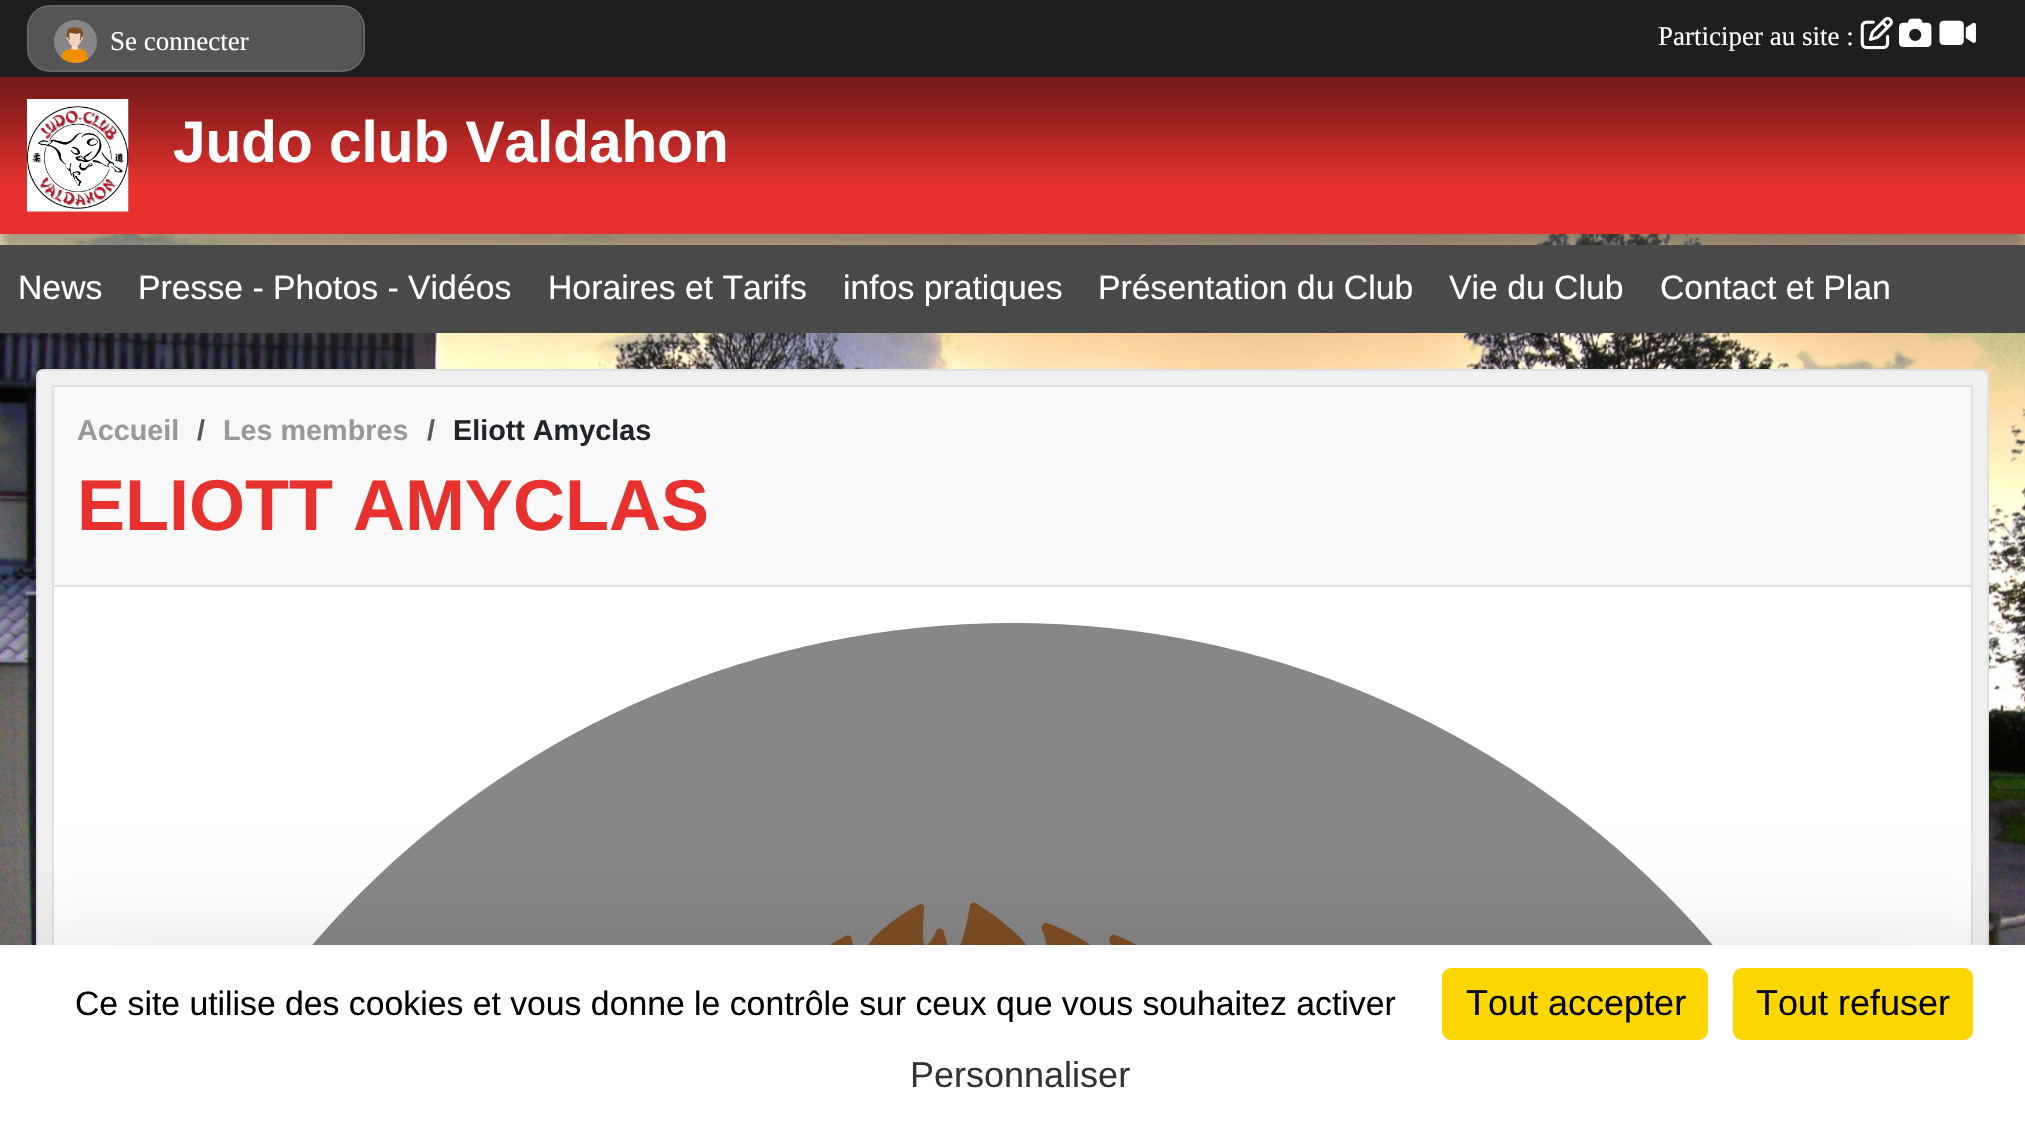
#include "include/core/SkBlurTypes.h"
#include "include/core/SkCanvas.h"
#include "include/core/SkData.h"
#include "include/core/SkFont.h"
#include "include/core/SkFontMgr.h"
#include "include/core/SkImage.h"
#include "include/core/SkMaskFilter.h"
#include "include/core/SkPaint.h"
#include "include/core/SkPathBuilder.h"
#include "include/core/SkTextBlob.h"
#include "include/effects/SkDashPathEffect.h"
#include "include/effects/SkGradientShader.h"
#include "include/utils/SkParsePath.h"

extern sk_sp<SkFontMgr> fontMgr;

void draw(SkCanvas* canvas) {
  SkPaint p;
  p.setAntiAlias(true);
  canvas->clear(SK_ColorWHITE);
  canvas->drawImageRect(SkImages::DeferredFromEncodedData(SkData::MakeFromFileName("images/1.png")), SkRect::MakeLTRB(0, 234, 2025, 945), SkSamplingOptions());
  p.setColor(SkColorSetARGB(128, 80, 80, 80));
  p.setMaskFilter(SkMaskFilter::MakeBlur(kNormal_SkBlurStyle, 5.5f));
  canvas->drawRect(SkRect::MakeLTRB(0, 92, 2025, 250), p);
  p.setMaskFilter(nullptr);
  p.setColor(SkColorSetRGB(30, 30, 30));
  canvas->drawRect(SkRect::MakeLTRB(0, 0, 2025, 77), p);
  p.setColor(SkColorSetRGB(51, 51, 51));
  canvas->drawRoundRect(SkRect::MakeLTRB(28, 6, 364, 71), 22, 22, p);
  p.setStyle(SkPaint::kStroke_Style);
  p.setStrokeWidth(2);
  p.setColor(SkColorSetRGB(102, 102, 102));
  canvas->drawRoundRect(SkRect::MakeLTRB(28, 6, 364, 71), 22, 22, p);
  p.setStyle(SkPaint::kFill_Style);
  p.setColor(SkColorSetRGB(85, 85, 85));
  canvas->drawRoundRect(SkRect::MakeLTRB(29, 7, 362, 70), 20, 20, p);
  canvas->drawImageRect(SkImages::DeferredFromEncodedData(SkData::MakeFromFileName("images/2.png")), SkRect::MakeLTRB(54, 20, 97, 63), SkSamplingOptions());
  canvas->drawImageRect(SkImages::DeferredFromEncodedData(SkData::MakeFromFileName("images/3.png")), SkRect::MakeLTRB(1860, 16, 1893, 50), SkSamplingOptions());
  canvas->drawImageRect(SkImages::DeferredFromEncodedData(SkData::MakeFromFileName("images/4.png")), SkRect::MakeLTRB(1899, 18, 1932, 47), SkSamplingOptions());
  canvas->drawImageRect(SkImages::DeferredFromEncodedData(SkData::MakeFromFileName("images/5.png")), SkRect::MakeLTRB(1939, 20, 1976, 45), SkSamplingOptions());
  p.setColor(SkColorSetRGB(230, 49, 46));
  canvas->drawRect(SkRect::MakeLTRB(0, 77, 2025, 234), p);
  canvas->drawImageRect(SkImages::DeferredFromEncodedData(SkData::MakeFromFileName("images/6.png")), SkRect::MakeLTRB(0, 77, 2025, 184), SkSamplingOptions());
  canvas->drawImageRect(SkImages::DeferredFromEncodedData(SkData::MakeFromFileName("images/7.png")), SkRect::MakeLTRB(27, 99, 129, 212), SkSamplingOptions());
  p.setColor(SkColorSetRGB(73, 73, 73));
  canvas->drawRect(SkRect::MakeLTRB(0, 245, 2025, 333), p);
  p.setColor(SkColorSetRGB(240, 240, 240));
  canvas->drawRoundRect(SkRect::MakeLTRB(37, 370, 1988, 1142), 6, 6, p);
  p.setStyle(SkPaint::kStroke_Style);
  p.setColor(SkColorSetRGB(225, 225, 225));
  canvas->drawRoundRect(SkRect::MakeLTRB(37, 370, 1988, 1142), 6, 6, p);
  p.setStyle(SkPaint::kFill_Style);
  p.setColor(SK_ColorWHITE);
  canvas->drawRect(SkRect::MakeLTRB(54, 587, 1971, 945), p);
  p.setStyle(SkPaint::kStroke_Style);
  p.setColor(SkColorSetRGB(225, 225, 225));
  canvas->drawRect(SkRect::MakeLTRB(53, 386, 1972, 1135), p);
  p.setStyle(SkPaint::kFill_Style);
  p.setColor(SkColorSetRGB(248, 248, 248));
  canvas->drawRect(SkRect::MakeLTRB(54, 387, 1971, 585), p);
  p.setColor(SkColorSetRGB(225, 225, 225));
  canvas->drawRect(SkRect::MakeLTRB(54, 585, 1971, 587), p);
  canvas->drawImageRect(SkImages::DeferredFromEncodedData(SkData::MakeFromFileName("images/8.png")), SkRect::MakeLTRB(312, 623, 1713, 945), SkSamplingOptions());
  p.setColor(SkColorSetARGB(64, 0, 0, 0));
  p.setMaskFilter(SkMaskFilter::MakeBlur(kNormal_SkBlurStyle, 67.5f));
  canvas->drawRect(SkRect::MakeLTRB(0, 990, 2025, 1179), p);
  p.setMaskFilter(nullptr);
  p.setColor(SK_ColorWHITE);
  canvas->drawRect(SkRect::MakeLTRB(0, 945, 2025, 1134), p);
  p.setColor(SkColorSetRGB(251, 214, 0));
  canvas->drawRoundRect(SkRect::MakeLTRB(1442, 968, 1708, 1040), 9, 9, p);
  canvas->drawRoundRect(SkRect::MakeLTRB(1733, 968, 1973, 1040), 9, 9, p);
  SkFont font1(fontMgr->matchFamilyStyle("Liberation Serif", SkFontStyle::Normal()), 27);
  font1.setSubpixel(true);
  p.setColor(SK_ColorWHITE);
  canvas->drawString("Se connecter", 110, 50, font1, p);
  canvas->drawString("Participer au site :", 1658, 45, font1, p);
  SkFont font2(fontMgr->matchFamilyStyle("Liberation Sans", SkFontStyle::Bold()), 58.5f);
  font2.setSubpixel(true);
  canvas->drawString("Judo club Valdahon", 173, 162, font2, p);
  SkFont font3(fontMgr->matchFamilyStyle("Liberation Sans", SkFontStyle::Normal()), 33.75f);
  font3.setSubpixel(true);
  canvas->drawString("News", 18, 299, font3, p);
  canvas->drawString("Presse - Photos - Vidéos", 138, 299, font3, p);
  canvas->drawString("Horaires et Tarifs", 548, 299, font3, p);
  canvas->drawString("infos pratiques", 843, 299, font3, p);
  canvas->drawString("Présentation du Club", 1098, 299, font3, p);
  canvas->drawString("Vie du Club", 1449, 299, font3, p);
  canvas->drawString("Contact et Plan", 1660, 299, font3, p);
  SkFont font4(fontMgr->matchFamilyStyle("Liberation Sans", SkFontStyle::Bold()), 28.75f);
  font4.setSubpixel(true);
  p.setColor(SkColorSetRGB(153, 153, 153));
  canvas->drawString("Accueil", 77, 440, font4, p);
  p.setColor(SkColorSetRGB(87, 90, 93));
  canvas->drawString("/", 197, 440, font4, p);
  p.setColor(SkColorSetRGB(153, 153, 153));
  canvas->drawString("Les membres", 223, 440, font4, p);
  p.setColor(SkColorSetRGB(87, 90, 93));
  canvas->drawString("/", 427, 440, font4, p);
  p.setColor(SkColorSetRGB(33, 37, 41));
  canvas->drawString("Eliott Amyclas", 453, 440, font4, p);
  SkFont font5(fontMgr->matchFamilyStyle("Liberation Sans", SkFontStyle::Bold()), 72);
  font5.setSubpixel(true);
  p.setColor(SkColorSetRGB(230, 49, 46));
  canvas->drawString("ELIOTT AMYCLAS", 77, 530, font5, p);
  p.setColor(SK_ColorBLACK);
  canvas->drawString("Ce site utilise des cookies et vous donne le contrôle sur ceux que vous souhaitez activer", 75, 1015, font3, p);
  SkFont font6(fontMgr->matchFamilyStyle("Liberation Sans", SkFontStyle::Normal()), 36);
  font6.setSubpixel(true);
  canvas->drawString("Tout accepter", 1466, 1015, font6, p);
  canvas->drawString("Tout refuser", 1756, 1015, font6, p);
  p.setColor(SkColorSetRGB(51, 51, 51));
  canvas->drawString("Personnaliser", 910, 1087, font6, p);
}
